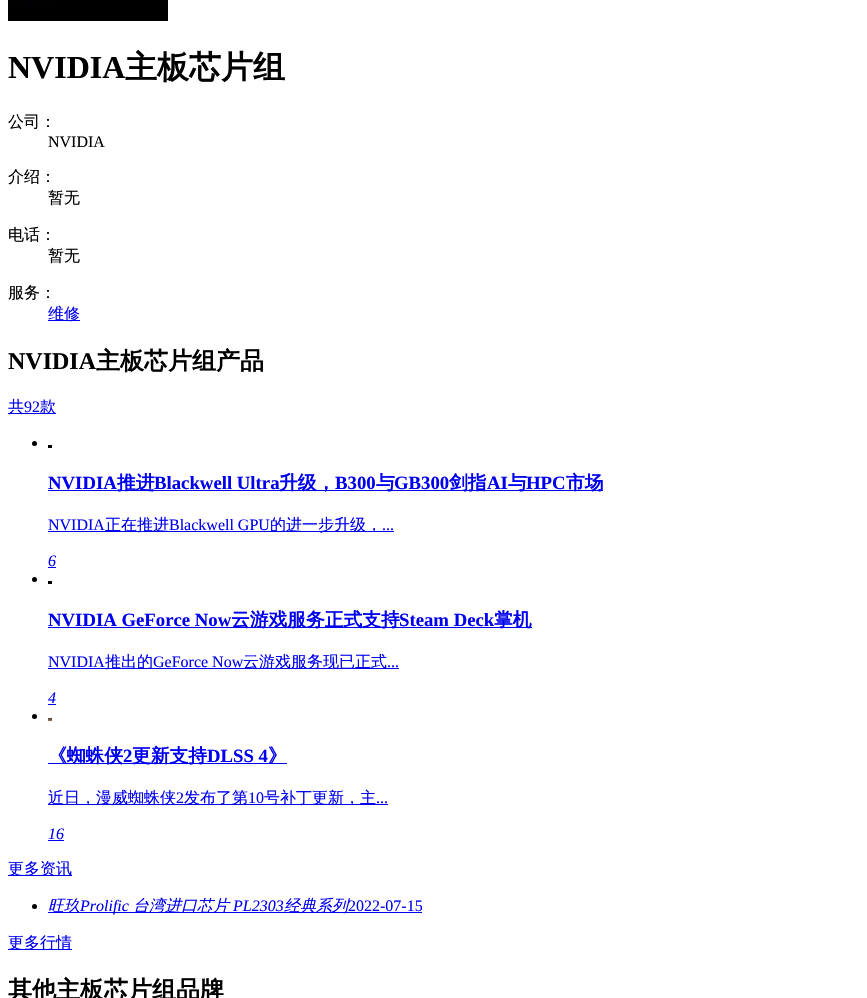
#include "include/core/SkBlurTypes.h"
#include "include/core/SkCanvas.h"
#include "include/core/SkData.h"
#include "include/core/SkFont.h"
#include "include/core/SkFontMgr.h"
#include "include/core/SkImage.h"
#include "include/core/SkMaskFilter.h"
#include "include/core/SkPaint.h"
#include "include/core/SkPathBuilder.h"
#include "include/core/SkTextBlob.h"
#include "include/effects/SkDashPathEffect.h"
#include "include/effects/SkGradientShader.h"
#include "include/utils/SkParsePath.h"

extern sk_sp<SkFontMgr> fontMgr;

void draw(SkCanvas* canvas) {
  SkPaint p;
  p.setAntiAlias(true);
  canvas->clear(SK_ColorWHITE);
  canvas->drawImageRect(SkImages::DeferredFromEncodedData(SkData::MakeFromFileName("images/1.png")), SkRect::MakeLTRB(8, 0, 168, 21), SkSamplingOptions());
  p.setColor(SkColorSetRGB(0, 0, 238));
  canvas->drawRect(SkRect::MakeLTRB(48, 320, 80, 321), p);
  canvas->drawRect(SkRect::MakeLTRB(8, 413, 56, 414), p);
  p.setColor(SK_ColorBLACK);
  canvas->drawCircle(34.5f, 443.5f, 2.5f, p);
  canvas->drawRect(SkRect::MakeLTRB(48, 445, 52, 448), p);
  p.setColor(SkColorSetRGB(0, 0, 238));
  canvas->drawRect(SkRect::MakeLTRB(48, 490, 603, 491), p);
  canvas->drawRect(SkRect::MakeLTRB(48, 531, 394, 532), p);
  canvas->drawRect(SkRect::MakeLTRB(48, 567, 56, 568), p);
  p.setColor(SK_ColorBLACK);
  canvas->drawCircle(34.5f, 579.5f, 2.5f, p);
  canvas->drawRect(SkRect::MakeLTRB(48, 581, 52, 584), p);
  p.setColor(SkColorSetRGB(0, 0, 238));
  canvas->drawRect(SkRect::MakeLTRB(48, 627, 532, 628), p);
  canvas->drawRect(SkRect::MakeLTRB(48, 668, 399, 669), p);
  canvas->drawRect(SkRect::MakeLTRB(48, 704, 56, 705), p);
  p.setColor(SK_ColorBLACK);
  canvas->drawCircle(34.5f, 716.5f, 2.5f, p);
  canvas->drawImageRect(SkImages::DeferredFromEncodedData(SkData::MakeFromFileName("images/2.png")), SkRect::MakeLTRB(48, 718, 52, 721), SkSamplingOptions());
  p.setColor(SkColorSetRGB(0, 0, 238));
  canvas->drawRect(SkRect::MakeLTRB(48, 763, 287, 764), p);
  canvas->drawRect(SkRect::MakeLTRB(48, 804, 388, 805), p);
  canvas->drawRect(SkRect::MakeLTRB(48, 840, 64, 841), p);
  canvas->drawRect(SkRect::MakeLTRB(8, 875, 72, 876), p);
  p.setColor(SK_ColorBLACK);
  canvas->drawCircle(34.5f, 906.5f, 2.5f, p);
  p.setColor(SkColorSetRGB(0, 0, 238));
  canvas->drawRect(SkRect::MakeLTRB(48, 912, 348, 913), p);
  canvas->drawRect(SkRect::MakeLTRB(348, 912, 422, 913), p);
  canvas->drawRect(SkRect::MakeLTRB(8, 949, 72, 950), p);
  SkFont font1(fontMgr->matchFamilyStyle("Liberation Serif", SkFontStyle::Bold()), 32);
  font1.setSubpixel(true);
  p.setColor(SK_ColorBLACK);
  canvas->drawString("NVIDIA", 8, 78, font1, p);
  SkFont font2(fontMgr->matchFamilyStyle("WenQuanYi Zen Hei", SkFontStyle::Bold()), 32);
  font2.setSubpixel(true);
  canvas->drawString("主板芯片组", 125, 78, font2, p);
  SkFont font3(fontMgr->matchFamilyStyle("WenQuanYi Zen Hei", SkFontStyle(500, SkFontStyle::kNormal_Width, SkFontStyle::kUpright_Slant)), 16);
  font3.setSubpixel(true);
  canvas->drawString("公司：", 8, 127, font3, p);
  SkFont font4(fontMgr->matchFamilyStyle("Liberation Serif", SkFontStyle::Normal()), 16);
  font4.setSubpixel(true);
  canvas->drawString("NVIDIA", 48, 147, font4, p);
  canvas->drawString("介绍：", 8, 182, font3, p);
  canvas->drawString("暂无", 48, 203, font3, p);
  canvas->drawString("电话：", 8, 240, font3, p);
  canvas->drawString("暂无", 48, 261, font3, p);
  canvas->drawString("服务：", 8, 298, font3, p);
  p.setColor(SkColorSetRGB(0, 0, 238));
  canvas->drawString("维修", 48, 319, font3, p);
  SkFont font5(fontMgr->matchFamilyStyle("Liberation Serif", SkFontStyle::Bold()), 24);
  font5.setSubpixel(true);
  p.setColor(SK_ColorBLACK);
  canvas->drawString("NVIDIA", 8, 369, font5, p);
  SkFont font6(fontMgr->matchFamilyStyle("WenQuanYi Zen Hei", SkFontStyle::Bold()), 24);
  font6.setSubpixel(true);
  canvas->drawString("主板芯片组产品", 96, 369, font6, p);
  p.setColor(SkColorSetRGB(0, 0, 238));
  canvas->drawString("共", 8, 412, font3, p);
  canvas->drawString("92", 24, 412, font4, p);
  canvas->drawString("款", 40, 412, font3, p);
  SkFont font7(fontMgr->matchFamilyStyle("Liberation Serif", SkFontStyle::Bold()), 18.75f);
  font7.setSubpixel(true);
  canvas->drawString("NVIDIA", 48, 489, font7, p);
  SkFont font8(fontMgr->matchFamilyStyle("WenQuanYi Zen Hei", SkFontStyle::Bold()), 18.75f);
  font8.setSubpixel(true);
  canvas->drawString("推进", 117, 489, font8, p);
  canvas->drawString("Blackwell Ultra", 154, 489, font7, p);
  canvas->drawString("升级，", 279, 489, font8, p);
  canvas->drawString("B300", 335, 489, font7, p);
  canvas->drawString("与", 376, 489, font8, p);
  canvas->drawString("GB300", 394, 489, font7, p);
  canvas->drawString("剑指", 449, 489, font8, p);
  canvas->drawString("AI", 487, 489, font7, p);
  canvas->drawString("与", 508, 489, font8, p);
  canvas->drawString("HPC", 526, 489, font7, p);
  canvas->drawString("市场", 566, 489, font8, p);
  canvas->drawString("NVIDIA", 48, 530, font4, p);
  canvas->drawString("正在推进", 105, 530, font3, p);
  canvas->drawString("Blackwell GPU", 169, 530, font4, p);
  canvas->drawString("的进一步升级，", 270, 530, font3, p);
  canvas->drawString("...", 382, 530, font4, p);
  SkFont font9(fontMgr->matchFamilyStyle("Liberation Serif", SkFontStyle::Italic()), 16);
  font9.setSubpixel(true);
  canvas->drawString("6", 48, 566, font9, p);
  canvas->drawString("NVIDIA GeForce Now", 48, 626, font7, p);
  canvas->drawString("云游戏服务正式支持", 231, 626, font8, p);
  canvas->drawString("Steam Deck", 399, 626, font7, p);
  canvas->drawString("掌机", 494, 626, font8, p);
  canvas->drawString("NVIDIA", 48, 667, font4, p);
  canvas->drawString("推出的", 105, 667, font3, p);
  canvas->drawString("GeForce Now", 153, 667, font4, p);
  canvas->drawString("云游戏服务现已正式", 243, 667, font3, p);
  canvas->drawString("...", 387, 667, font4, p);
  canvas->drawString("4", 48, 703, font9, p);
  canvas->drawString("《蜘蛛侠", 48, 762, font8, p);
  canvas->drawString("2", 123, 762, font7, p);
  canvas->drawString("更新支持", 132, 762, font8, p);
  canvas->drawString("DLSS 4", 207, 762, font7, p);
  canvas->drawString("》", 268, 762, font8, p);
  canvas->drawString("近日，漫威蜘蛛侠", 48, 803, font3, p);
  canvas->drawString("2", 176, 803, font4, p);
  canvas->drawString("发布了第", 184, 803, font3, p);
  canvas->drawString("10", 248, 803, font4, p);
  canvas->drawString("号补丁更新，主", 264, 803, font3, p);
  canvas->drawString("...", 376, 803, font4, p);
  canvas->drawString("16", 48, 839, font9, p);
  canvas->drawString("更多资讯", 8, 874, font3, p);
  SkFont font10(fontMgr->matchFamilyStyle("WenQuanYi Zen Hei", SkFontStyle(500, SkFontStyle::kNormal_Width, SkFontStyle::kItalic_Slant)), 16);
  font10.setSubpixel(true);
  canvas->drawString("旺玖", 48, 911, font10, p);
  canvas->drawString("Prolific", 80, 911, font9, p);
  canvas->drawString("台湾进口芯片", 133, 911, font10, p);
  canvas->drawString("PL2303", 233, 911, font9, p);
  canvas->drawString("经典系列", 284, 911, font10, p);
  canvas->drawString("2022-07-15", 348, 911, font4, p);
  canvas->drawString("更多行情", 8, 948, font3, p);
  p.setColor(SK_ColorBLACK);
  canvas->drawString("其他主板芯片组品牌", 8, 998, font6, p);
}
